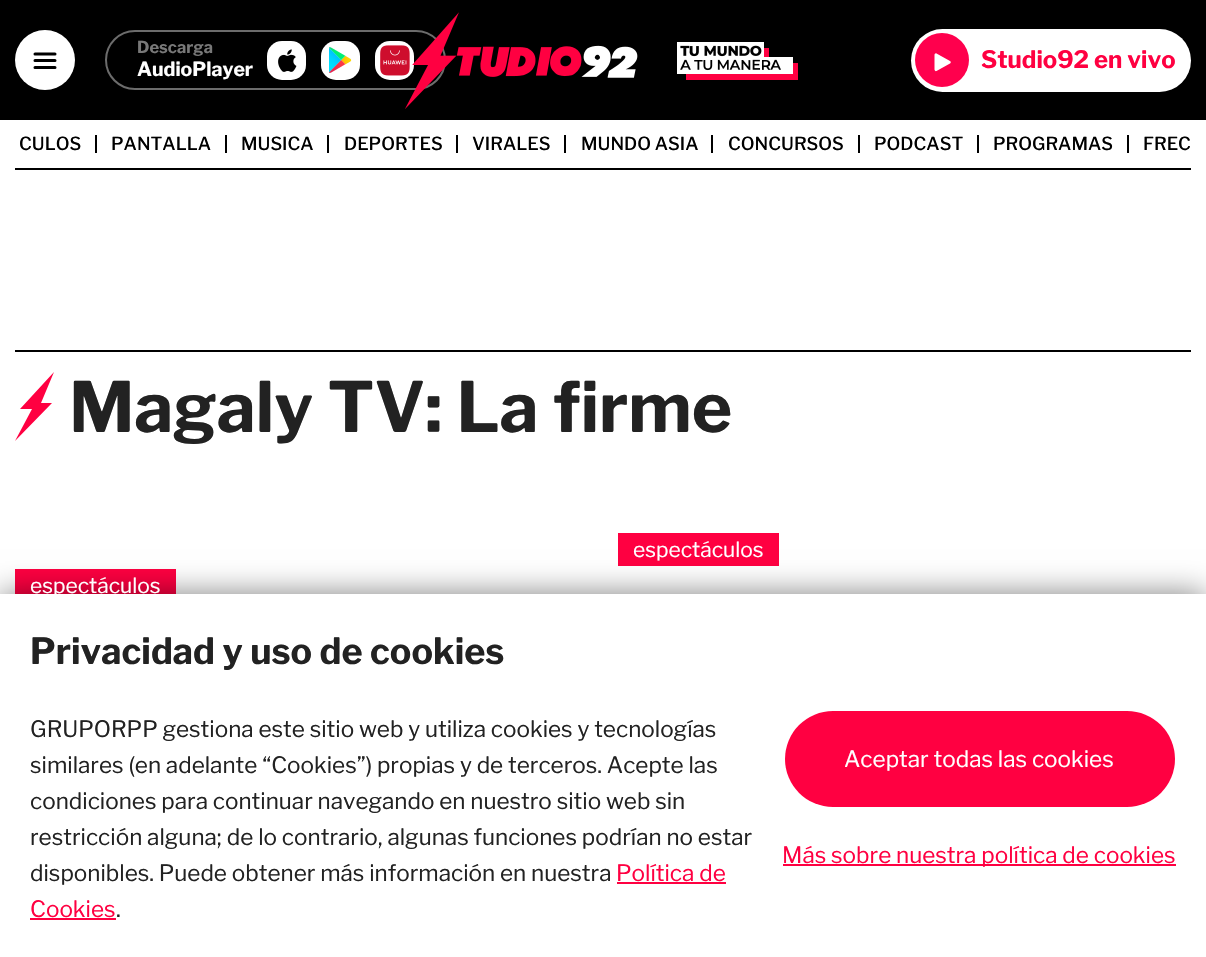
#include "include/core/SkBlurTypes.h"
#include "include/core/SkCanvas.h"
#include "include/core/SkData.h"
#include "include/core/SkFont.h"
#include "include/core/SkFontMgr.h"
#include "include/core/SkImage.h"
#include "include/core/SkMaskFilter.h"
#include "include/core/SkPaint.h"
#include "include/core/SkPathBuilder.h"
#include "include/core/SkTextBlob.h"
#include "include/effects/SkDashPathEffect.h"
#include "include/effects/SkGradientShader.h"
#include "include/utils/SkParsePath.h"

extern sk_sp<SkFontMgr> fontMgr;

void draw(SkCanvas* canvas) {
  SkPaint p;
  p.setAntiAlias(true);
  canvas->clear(SK_ColorWHITE);
  p.setColor(SK_ColorBLACK);
  canvas->drawRect(SkRect::MakeLTRB(0, 0, 1206, 120), p);
  p.setColor(SK_ColorWHITE);
  canvas->drawCircle(45, 60, 30, p);
  p.setStyle(SkPaint::kStroke_Style);
  p.setStrokeWidth(3);
  p.setStrokeCap(SkPaint::kRound_Cap);
  p.setStrokeJoin(SkPaint::kRound_Join);
  p.setColor(SK_ColorBLACK);
  canvas->drawPath(SkPathBuilder().moveTo(35, 60.5f).lineTo(55, 60.5f).moveTo(35, 54).lineTo(55, 54).moveTo(35, 67.5f).lineTo(55, 67.5f).detach(), p);
  p.setStrokeWidth(2);
  p.setStrokeCap(SkPaint::kButt_Cap);
  p.setStrokeJoin(SkPaint::kMiter_Join);
  p.setColor(SkColorSetRGB(108, 108, 108));
  canvas->drawRoundRect(SkRect::MakeLTRB(106, 31, 445, 89), 29, 29, p);
  p.setStyle(SkPaint::kFill_Style);
  p.setColor(SK_ColorWHITE);
  canvas->drawRoundRect(SkRect::MakeLTRB(267, 41, 306, 80), 15, 15, p);
  canvas->drawImageRect(SkImages::DeferredFromEncodedData(SkData::MakeFromFileName("images/1.png")), SkRect::MakeLTRB(278, 49, 297, 72), SkSamplingOptions());
  canvas->drawRoundRect(SkRect::MakeLTRB(321, 41, 360, 80), 15, 15, p);
  canvas->drawImageRect(SkImages::DeferredFromEncodedData(SkData::MakeFromFileName("images/2.png")), SkRect::MakeLTRB(329, 47, 352, 73), SkSamplingOptions());
  canvas->drawRoundRect(SkRect::MakeLTRB(375, 41, 414, 80), 15, 15, p);
  canvas->drawImageRect(SkImages::DeferredFromEncodedData(SkData::MakeFromFileName("images/3.png")), SkRect::MakeLTRB(380, 45, 410, 76), SkSamplingOptions());
  canvas->drawImageRect(SkImages::DeferredFromEncodedData(SkData::MakeFromFileName("images/4.png")), SkRect::MakeLTRB(405, 12, 638, 109), SkSamplingOptions());
  canvas->drawImageRect(SkImages::DeferredFromEncodedData(SkData::MakeFromFileName("images/5.png")), SkRect::MakeLTRB(677, 42, 798, 80), SkSamplingOptions());
  canvas->drawRoundRect(SkRect::MakeLTRB(911, 29, 1191, 92), 31.5f, 31.5f, p);
  p.setColor(SkColorSetRGB(255, 0, 77));
  canvas->drawCircle(942, 60, 27, p);
  p.setColor(SK_ColorWHITE);
  canvas->drawPath(SkPathBuilder(SkPathFillType::kEvenOdd).moveTo(934.5f, 55).cubicTo(934.5f, 54, 935.5f, 53, 936.5f, 53.5f).lineTo(950, 61).cubicTo(951, 61.5f, 951, 63, 950, 63.5f).lineTo(936.5f, 71).cubicTo(935.5f, 71.5f, 934.5f, 70.5f, 934.5f, 69.5f).close().detach(), p);
  p.setColor(SK_ColorBLACK);
  canvas->drawRect(SkRect::MakeLTRB(15, 168, 1191, 170), p);
  canvas->drawRect(SkRect::MakeLTRB(95, 135, 97, 153), p);
  canvas->drawRect(SkRect::MakeLTRB(225, 135, 227, 153), p);
  canvas->drawRect(SkRect::MakeLTRB(327, 135, 329, 153), p);
  canvas->drawRect(SkRect::MakeLTRB(456, 135, 458, 153), p);
  canvas->drawRect(SkRect::MakeLTRB(564, 135, 566, 153), p);
  canvas->drawRect(SkRect::MakeLTRB(711, 135, 713, 153), p);
  canvas->drawRect(SkRect::MakeLTRB(858, 135, 860, 153), p);
  canvas->drawRect(SkRect::MakeLTRB(977, 135, 979, 153), p);
  canvas->drawRect(SkRect::MakeLTRB(1127, 135, 1129, 153), p);
  canvas->drawRect(SkRect::MakeLTRB(15, 350, 1191, 352), p);
  p.setColor(SkColorSetRGB(255, 0, 65));
  canvas->drawPath(SkPathBuilder().moveTo(54, 372).lineTo(41, 403).lineTo(52, 403).lineTo(15, 441).lineTo(32, 409).lineTo(20, 409).close().detach(), p);
  canvas->drawRect(SkRect::MakeLTRB(618, 533, 779, 566), p);
  canvas->drawRect(SkRect::MakeLTRB(15, 569, 176, 594), p);
  p.setColor(SkColorSetARGB(128, 0, 0, 0));
  p.setMaskFilter(SkMaskFilter::MakeBlur(kNormal_SkBlurStyle, 15));
  canvas->drawRect(SkRect::MakeLTRB(0, 594, 1206, 957), p);
  p.setMaskFilter(nullptr);
  p.setColor(SK_ColorWHITE);
  canvas->drawRect(SkRect::MakeLTRB(0, 594, 1206, 957), p);
  p.setColor(SkColorSetRGB(255, 0, 65));
  canvas->drawRect(SkRect::MakeLTRB(617, 882, 726, 884), p);
  canvas->drawRect(SkRect::MakeLTRB(30, 918, 116, 920), p);
  canvas->drawRoundRect(SkRect::MakeLTRB(785, 711, 1175, 807), 48, 48, p);
  canvas->drawRect(SkRect::MakeLTRB(783, 864, 1176, 866), p);
  SkFont font1(fontMgr->matchFamilyStyle("Libre Franklin", SkFontStyle::Bold()), 16.5f);
  font1.setSubpixel(true);
  p.setColor(SkColorSetRGB(120, 120, 120));
  canvas->drawString("Descarga", 137, 53, font1, p);
  SkFont font2(fontMgr->matchFamilyStyle("Libre Franklin", SkFontStyle::Bold()), 19.5f);
  font2.setSubpixel(true);
  p.setColor(SK_ColorWHITE);
  canvas->drawString("AudioPlayer", 137, 76, font2, p);
  SkFont font3(fontMgr->matchFamilyStyle("Libre Franklin", SkFontStyle::Bold()), 24);
  font3.setSubpixel(true);
  p.setColor(SkColorSetRGB(255, 0, 65));
  canvas->drawString("Studio92 en vivo", 981, 68, font3, p);
  SkFont font4(fontMgr->matchFamilyStyle("Libre Franklin", SkFontStyle(500, SkFontStyle::kNormal_Width, SkFontStyle::kUpright_Slant)), 18);
  font4.setSubpixel(true);
  p.setColor(SK_ColorBLACK);
  canvas->drawString("CULOS", 19, 150, font4, p);
  canvas->drawString("PANTALLA", 111, 150, font4, p);
  canvas->drawString("MUSICA", 241, 150, font4, p);
  canvas->drawString("DEPORTES", 344, 150, font4, p);
  canvas->drawString("VIRALES", 472, 150, font4, p);
  canvas->drawString("MUNDO ASIA", 581, 150, font4, p);
  canvas->drawString("CONCURSOS", 728, 150, font4, p);
  canvas->drawString("PODCAST", 874, 150, font4, p);
  canvas->drawString("PROGRAMAS", 993, 150, font4, p);
  canvas->drawString("FREC", 1143, 150, font4, p);
  SkFont font5(fontMgr->matchFamilyStyle("Libre Franklin", SkFontStyle::Bold()), 69);
  font5.setSubpixel(true);
  p.setColor(SkColorSetRGB(34, 34, 34));
  canvas->drawString("Magaly TV: La firme", 69, 432, font5, p);
  SkFont font6(fontMgr->matchFamilyStyle("Libre Franklin", SkFontStyle::Normal()), 21);
  font6.setSubpixel(true);
  p.setColor(SK_ColorWHITE);
  canvas->drawString("espectáculos", 633, 557, font6, p);
  canvas->drawString("espectáculos", 30, 593, font6, p);
  SkFont font7(fontMgr->matchFamilyStyle("Libre Franklin", SkFontStyle::Bold()), 36);
  font7.setSubpixel(true);
  p.setColor(SkColorSetRGB(34, 34, 34));
  canvas->drawString("Privacidad y uso de cookies", 30, 664, font7, p);
  SkFont font8(fontMgr->matchFamilyStyle("Libre Franklin", SkFontStyle::Normal()), 22.5f);
  font8.setSubpixel(true);
  canvas->drawString("GRUPORPP gestiona este sitio web y utiliza cookies y tecnologías", 30, 737, font8, p);
  canvas->drawString("similares (en adelante “Cookies”) propias y de terceros. Acepte las", 30, 773, font8, p);
  canvas->drawString("condiciones para continuar navegando en nuestro sitio web sin", 30, 809, font8, p);
  canvas->drawString("restricción alguna; de lo contrario, algunas funciones podrían no estar", 30, 845, font8, p);
  canvas->drawString("disponibles. Puede obtener más información en nuestra", 30, 881, font8, p);
  p.setColor(SkColorSetRGB(255, 0, 65));
  canvas->drawString("Política de", 616, 881, font8, p);
  canvas->drawString("Cookies", 30, 917, font8, p);
  p.setColor(SkColorSetRGB(34, 34, 34));
  canvas->drawString(".", 116, 917, font8, p);
  p.setColor(SK_ColorWHITE);
  canvas->drawString("Aceptar todas las cookies", 844, 767, font8, p);
  p.setColor(SkColorSetRGB(255, 0, 65));
  canvas->drawString("Más sobre nuestra política de cookies", 782, 863, font8, p);
}
